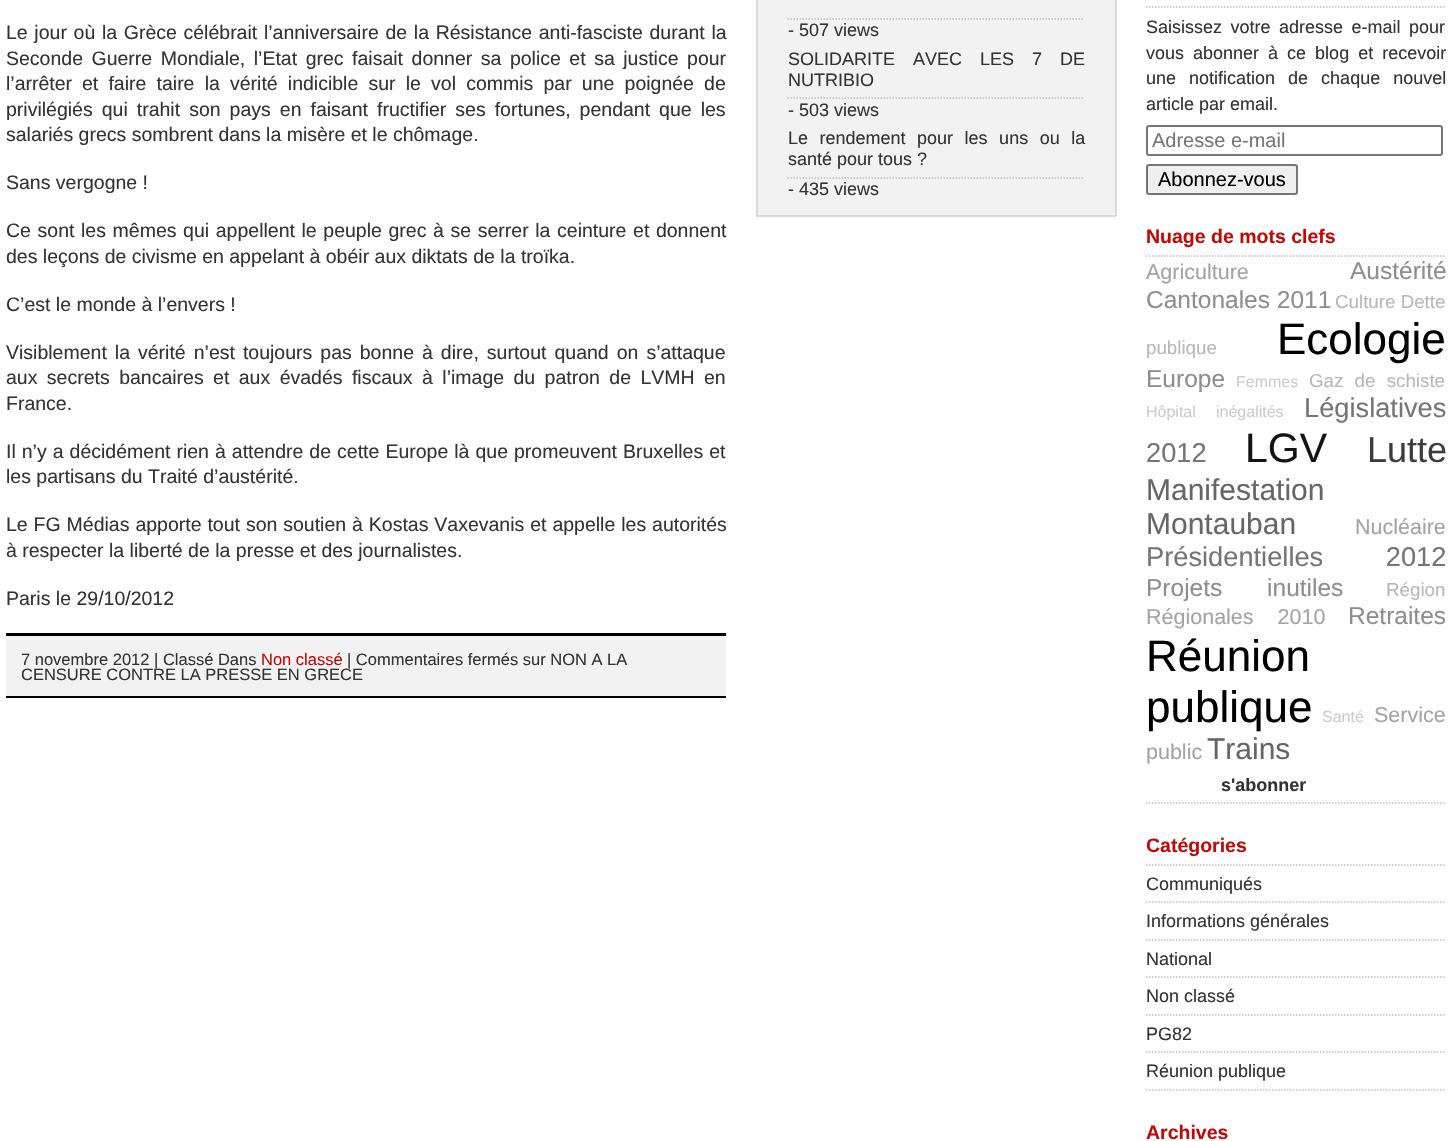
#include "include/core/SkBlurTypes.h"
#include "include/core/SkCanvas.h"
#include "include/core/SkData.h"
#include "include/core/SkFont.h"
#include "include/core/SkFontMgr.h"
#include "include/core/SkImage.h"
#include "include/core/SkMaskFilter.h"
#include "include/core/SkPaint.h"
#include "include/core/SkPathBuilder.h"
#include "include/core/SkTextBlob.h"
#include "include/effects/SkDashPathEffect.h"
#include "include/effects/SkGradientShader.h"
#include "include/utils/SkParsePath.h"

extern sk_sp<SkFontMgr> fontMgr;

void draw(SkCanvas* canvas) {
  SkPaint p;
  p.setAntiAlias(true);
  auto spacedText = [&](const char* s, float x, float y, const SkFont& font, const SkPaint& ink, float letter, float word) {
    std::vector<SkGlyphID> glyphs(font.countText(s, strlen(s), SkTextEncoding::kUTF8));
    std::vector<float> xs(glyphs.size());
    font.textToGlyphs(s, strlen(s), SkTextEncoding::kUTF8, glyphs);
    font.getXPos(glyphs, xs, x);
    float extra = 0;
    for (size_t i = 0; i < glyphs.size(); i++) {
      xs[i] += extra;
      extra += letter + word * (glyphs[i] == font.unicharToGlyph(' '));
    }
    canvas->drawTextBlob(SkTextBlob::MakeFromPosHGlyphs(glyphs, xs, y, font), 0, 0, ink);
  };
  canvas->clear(SK_ColorWHITE);
  p.setColor(SkColorSetRGB(242, 242, 242));
  canvas->drawRect(SkRect::MakeLTRB(6, 636, 726, 696), p);
  p.setColor(SK_ColorBLACK);
  canvas->drawRect(SkRect::MakeLTRB(6, 633, 726, 636), p);
  canvas->drawRect(SkRect::MakeLTRB(6, 696, 726, 698), p);
  p.setColor(SkColorSetRGB(242, 242, 242));
  canvas->drawRect(SkRect::MakeLTRB(758, 0, 1115, 215), p);
  p.setColor(SkColorSetRGB(217, 217, 217));
  canvas->drawRect(SkRect::MakeLTRB(1115, 0, 1117, 216), p);
  canvas->drawRect(SkRect::MakeLTRB(756, 215, 1116, 217), p);
  canvas->drawRect(SkRect::MakeLTRB(756, 0, 758, 216), p);
  p.setStyle(SkPaint::kStroke_Style);
  p.setStrokeWidth(1.5f);
  p.setColor(SkColorSetRGB(192, 192, 192));
  p.setPathEffect(SkDashPathEffect::Make({{1.5f, 1.5f}}, 0));
  canvas->drawPath(SkPathBuilder().moveTo(787.5f, 19).lineTo(1084.5f, 19).detach(), p);
  p.setPathEffect(nullptr);
  p.setPathEffect(SkDashPathEffect::Make({{1.5f, 1.5f}}, 0));
  canvas->drawPath(SkPathBuilder().moveTo(787.5f, 98).lineTo(1084.5f, 98).detach(), p);
  p.setPathEffect(nullptr);
  p.setPathEffect(SkDashPathEffect::Make({{1.5f, 1.5f}}, 0));
  canvas->drawPath(SkPathBuilder().moveTo(787.5f, 178).lineTo(1084.5f, 178).detach(), p);
  p.setPathEffect(nullptr);
  p.setPathEffect(SkDashPathEffect::Make({{1.5f, 1.5f}}, 0));
  canvas->drawPath(SkPathBuilder().moveTo(1146, 7).lineTo(1446, 7).detach(), p);
  p.setPathEffect(nullptr);
  p.setStrokeWidth(2);
  p.setColor(SkColorSetRGB(118, 118, 118));
  canvas->drawRoundRect(SkRect::MakeLTRB(1147, 126, 1442, 155), 2, 2, p);
  p.setStyle(SkPaint::kFill_Style);
  p.setColor(SkColorSetRGB(239, 239, 239));
  canvas->drawRoundRect(SkRect::MakeLTRB(1147, 165, 1297, 194), 2, 2, p);
  p.setStyle(SkPaint::kStroke_Style);
  p.setColor(SkColorSetRGB(118, 118, 118));
  canvas->drawRoundRect(SkRect::MakeLTRB(1147, 165, 1297, 194), 2, 2, p);
  p.setStrokeWidth(1.5f);
  p.setColor(SkColorSetRGB(192, 192, 192));
  p.setPathEffect(SkDashPathEffect::Make({{1.5f, 1.5f}}, 0));
  canvas->drawPath(SkPathBuilder().moveTo(1146, 256).lineTo(1446, 256).detach(), p);
  p.setPathEffect(nullptr);
  p.setPathEffect(SkDashPathEffect::Make({{1.5f, 1.5f}}, 0));
  canvas->drawPath(SkPathBuilder().moveTo(1146, 803).lineTo(1446, 803).detach(), p);
  p.setPathEffect(nullptr);
  p.setPathEffect(SkDashPathEffect::Make({{1.5f, 1.5f}}, 0));
  canvas->drawPath(SkPathBuilder().moveTo(1146, 865).lineTo(1446, 865).detach(), p);
  p.setPathEffect(nullptr);
  p.setPathEffect(SkDashPathEffect::Make({{1.5f, 1.5f}}, 0));
  canvas->drawPath(SkPathBuilder().moveTo(1146, 902).lineTo(1446, 902).detach(), p);
  p.setPathEffect(nullptr);
  p.setPathEffect(SkDashPathEffect::Make({{1.5f, 1.5f}}, 0));
  canvas->drawPath(SkPathBuilder().moveTo(1146, 940).lineTo(1446, 940).detach(), p);
  p.setPathEffect(nullptr);
  p.setPathEffect(SkDashPathEffect::Make({{1.5f, 1.5f}}, 0));
  canvas->drawPath(SkPathBuilder().moveTo(1146, 977).lineTo(1446, 977).detach(), p);
  p.setPathEffect(nullptr);
  p.setPathEffect(SkDashPathEffect::Make({{1.5f, 1.5f}}, 0));
  canvas->drawPath(SkPathBuilder().moveTo(1146, 1015).lineTo(1446, 1015).detach(), p);
  p.setPathEffect(nullptr);
  p.setPathEffect(SkDashPathEffect::Make({{1.5f, 1.5f}}, 0));
  canvas->drawPath(SkPathBuilder().moveTo(1146, 1052).lineTo(1446, 1052).detach(), p);
  p.setPathEffect(nullptr);
  p.setPathEffect(SkDashPathEffect::Make({{1.5f, 1.5f}}, 0));
  canvas->drawPath(SkPathBuilder().moveTo(1146, 1090).lineTo(1446, 1090).detach(), p);
  p.setPathEffect(nullptr);
  SkFont font1(fontMgr->matchFamilyStyle("Liberation Sans", SkFontStyle::Normal()), 19.5f);
  font1.setSubpixel(true);
  p.setStyle(SkPaint::kFill_Style);
  p.setColor(SkColorSetRGB(51, 51, 51));
  spacedText("Le jour où la Grèce célébrait l’anniversaire de la Résistance anti-fasciste durant la", 6, 39, font1, p, 0, 1.25f);
  spacedText("Seconde Guerre Mondiale, l’Etat grec faisait donner sa police et sa justice pour", 6, 65, font1, p, 0, 3.1f);
  canvas->drawString("l’arrêter", 6, 90, font1, p);
  spacedText("et faire taire la vérité indicible sur le vol commis par une poignée de", 82, 90, font1, p, 0, 4.75f);
  spacedText("privilégiés qui trahit son pays en faisant fructifier ses fortunes, pendant que les", 6, 116, font1, p, 0, 3.6f);
  canvas->drawString("salariés grecs sombrent dans la misère et le chômage.", 6, 141, font1, p);
  canvas->drawString("Sans vergogne !", 6, 189, font1, p);
  spacedText("Ce sont les mêmes qui appellent le peuple grec à se serrer la ceinture et donnent", 6, 237, font1, p, 0, 1.2f);
  canvas->drawString("des leçons de civisme en appelant à obéir aux diktats de la troïka.", 6, 263, font1, p);
  canvas->drawString("C’est le monde à l’envers !", 6, 311, font1, p);
  spacedText("Visiblement la vérité n’est toujours pas bonne à dire, surtout quand on s’attaque", 6, 359, font1, p, 0, 2.6f);
  spacedText("aux secrets bancaires et aux évadés fiscaux à l’image du patron de LVMH en", 6, 384, font1, p, 0, 4);
  canvas->drawString("France.", 6, 410, font1, p);
  spacedText("Il n’y a décidément rien à attendre de cette Europe là que promeuvent Bruxelles et", 6, 458, font1, p, 0, 0.6f);
  canvas->drawString("les partisans du Traité d’austérité.", 6, 483, font1, p);
  spacedText("Le FG Médias apporte tout son soutien à Kostas Vaxevanis et appelle les autorités", 6, 531, font1, p, 0, 0.5f);
  canvas->drawString("à respecter la liberté de la presse et des journalistes.", 6, 557, font1, p);
  canvas->drawString("Paris le 29/10/2012", 6, 605, font1, p);
  SkFont font2(fontMgr->matchFamilyStyle("Liberation Sans", SkFontStyle::Normal()), 16.5f);
  font2.setSubpixel(true);
  canvas->drawString("7 novembre 2012 | Classé Dans", 21, 665, font2, p);
  p.setColor(SkColorSetRGB(190, 12, 12));
  canvas->drawString("Non classé", 261, 665, font2, p);
  p.setColor(SkColorSetRGB(51, 51, 51));
  canvas->drawString("| Commentaires fermés sur NON A LA", 347, 665, font2, p);
  canvas->drawString("CENSURE CONTRE LA PRESSE EN GRECE", 21, 680, font2, p);
  SkFont font3(fontMgr->matchFamilyStyle("Liberation Sans", SkFontStyle::Normal()), 18);
  font3.setSubpixel(true);
  canvas->drawString("- 507 views", 788, 36, font3, p);
  spacedText("SOLIDARITE AVEC LES 7 DE", 788, 65, font3, p, 0, 13);
  canvas->drawString("NUTRIBIO", 788, 86, font3, p);
  canvas->drawString("- 503 views", 788, 116, font3, p);
  spacedText("Le rendement pour les uns ou la", 788, 144, font3, p, 0, 6.5f);
  canvas->drawString("santé pour tous ?", 788, 165, font3, p);
  canvas->drawString("- 435 views", 788, 195, font3, p);
  spacedText("Saisissez votre adresse e-mail pour", 1146, 33, font3, p, 0, 3.5f);
  spacedText("vous abonner à ce blog et recevoir", 1146, 59, font3, p, 0, 4);
  spacedText("une notification de chaque nouvel", 1146, 84, font3, p, 0, 8);
  canvas->drawString("article par email.", 1146, 110, font3, p);
  SkFont font4(fontMgr->matchFamilyStyle("Liberation Sans", SkFontStyle::Normal()), 20);
  font4.setSubpixel(true);
  p.setColor(SkColorSetRGB(117, 117, 117));
  canvas->drawString("Adresse e-mail", 1152, 147, font4, p);
  p.setColor(SK_ColorBLACK);
  canvas->drawString("Abonnez-vous", 1158, 186, font4, p);
  SkFont font5(fontMgr->matchFamilyStyle("Liberation Sans", SkFontStyle::Bold()), 19.5f);
  font5.setSubpixel(true);
  p.setColor(SkColorSetRGB(190, 12, 12));
  canvas->drawString("Nuage de mots clefs", 1146, 243, font5, p);
  SkFont font6(fontMgr->matchFamilyStyle("Liberation Sans", SkFontStyle::Normal()), 21.5f);
  font6.setSubpixel(true);
  p.setColor(SkColorSetRGB(163, 163, 163));
  canvas->drawString("Agriculture", 1146, 279, font6, p);
  SkFont font7(fontMgr->matchFamilyStyle("Liberation Sans", SkFontStyle::Normal()), 24.5f);
  font7.setSubpixel(true);
  p.setColor(SkColorSetRGB(142, 142, 142));
  canvas->drawString("Austérité", 1350, 279, font7, p);
  canvas->drawString("Cantonales 2011", 1146, 308, font7, p);
  SkFont font8(fontMgr->matchFamilyStyle("Liberation Sans", SkFontStyle::Normal()), 18.75f);
  font8.setSubpixel(true);
  p.setColor(SkColorSetRGB(183, 183, 183));
  canvas->drawString("Culture Dette", 1335, 308, font8, p);
  canvas->drawString("publique", 1146, 354, font8, p);
  SkFont font9(fontMgr->matchFamilyStyle("Liberation Sans", SkFontStyle::Normal()), 44);
  font9.setSubpixel(true);
  p.setColor(SK_ColorBLACK);
  canvas->drawString("Ecologie", 1277, 354, font9, p);
  p.setColor(SkColorSetRGB(142, 142, 142));
  canvas->drawString("Europe", 1146, 387, font7, p);
  SkFont font10(fontMgr->matchFamilyStyle("Liberation Sans", SkFontStyle::Normal()), 16);
  font10.setSubpixel(true);
  p.setColor(SkColorSetRGB(204, 204, 204));
  canvas->drawString("Femmes", 1236, 387, font10, p);
  p.setColor(SkColorSetRGB(183, 183, 183));
  spacedText("Gaz de schiste", 1309, 387, font8, p, 0, 6);
  p.setColor(SkColorSetRGB(204, 204, 204));
  canvas->drawString("Hôpital", 1146, 417, font10, p);
  canvas->drawString("inégalités", 1216, 417, font10, p);
  SkFont font11(fontMgr->matchFamilyStyle("Liberation Sans", SkFontStyle::Normal()), 27.25f);
  font11.setSubpixel(true);
  p.setColor(SkColorSetRGB(117, 117, 117));
  canvas->drawString("Législatives", 1304, 417, font11, p);
  canvas->drawString("2012", 1146, 462, font11, p);
  SkFont font12(fontMgr->matchFamilyStyle("Liberation Sans", SkFontStyle::Normal()), 41);
  font12.setSubpixel(true);
  p.setColor(SkColorSetRGB(20, 20, 20));
  canvas->drawString("LGV", 1245, 462, font12, p);
  SkFont font13(fontMgr->matchFamilyStyle("Liberation Sans", SkFontStyle::Normal()), 36);
  font13.setSubpixel(true);
  p.setColor(SkColorSetRGB(61, 61, 61));
  canvas->drawString("Lutte", 1367, 462, font13, p);
  SkFont font14(fontMgr->matchFamilyStyle("Liberation Sans", SkFontStyle::Normal()), 30);
  font14.setSubpixel(true);
  p.setColor(SkColorSetRGB(102, 102, 102));
  canvas->drawString("Manifestation", 1146, 500, font14, p);
  canvas->drawString("Montauban", 1146, 534, font14, p);
  p.setColor(SkColorSetRGB(163, 163, 163));
  canvas->drawString("Nucléaire", 1355, 534, font6, p);
  p.setColor(SkColorSetRGB(117, 117, 117));
  spacedText("Présidentielles 2012", 1146, 566, font11, p, 0, 55);
  p.setColor(SkColorSetRGB(142, 142, 142));
  spacedText("Projets inutiles", 1146, 596, font7, p, 0, 38);
  p.setColor(SkColorSetRGB(183, 183, 183));
  canvas->drawString("Région", 1386, 596, font8, p);
  p.setColor(SkColorSetRGB(163, 163, 163));
  spacedText("Régionales 2010", 1146, 624, font6, p, 0, 18);
  p.setColor(SkColorSetRGB(142, 142, 142));
  canvas->drawString("Retraites", 1348, 624, font7, p);
  p.setColor(SK_ColorBLACK);
  canvas->drawString("Réunion", 1146, 671, font9, p);
  canvas->drawString("publique", 1146, 722, font9, p);
  p.setColor(SkColorSetRGB(204, 204, 204));
  canvas->drawString("Santé", 1322, 722, font10, p);
  p.setColor(SkColorSetRGB(163, 163, 163));
  canvas->drawString("Service", 1374, 722, font6, p);
  canvas->drawString("public", 1146, 759, font6, p);
  p.setColor(SkColorSetRGB(102, 102, 102));
  canvas->drawString("Trains", 1207, 759, font14, p);
  SkFont font15(fontMgr->matchFamilyStyle("Liberation Sans", SkFontStyle::Bold()), 18);
  font15.setSubpixel(true);
  p.setColor(SkColorSetRGB(51, 51, 51));
  canvas->drawString("s'abonner", 1221, 791, font15, p);
  p.setColor(SkColorSetRGB(190, 12, 12));
  canvas->drawString("Catégories", 1146, 852, font5, p);
  p.setColor(SkColorSetRGB(51, 51, 51));
  canvas->drawString("Communiqués", 1146, 890, font3, p);
  canvas->drawString("Informations générales", 1146, 927, font3, p);
  canvas->drawString("National", 1146, 965, font3, p);
  canvas->drawString("Non classé", 1146, 1002, font3, p);
  canvas->drawString("PG82", 1146, 1040, font3, p);
  canvas->drawString("Réunion publique", 1146, 1077, font3, p);
  p.setColor(SkColorSetRGB(190, 12, 12));
  canvas->drawString("Archives", 1146, 1139, font5, p);
}
